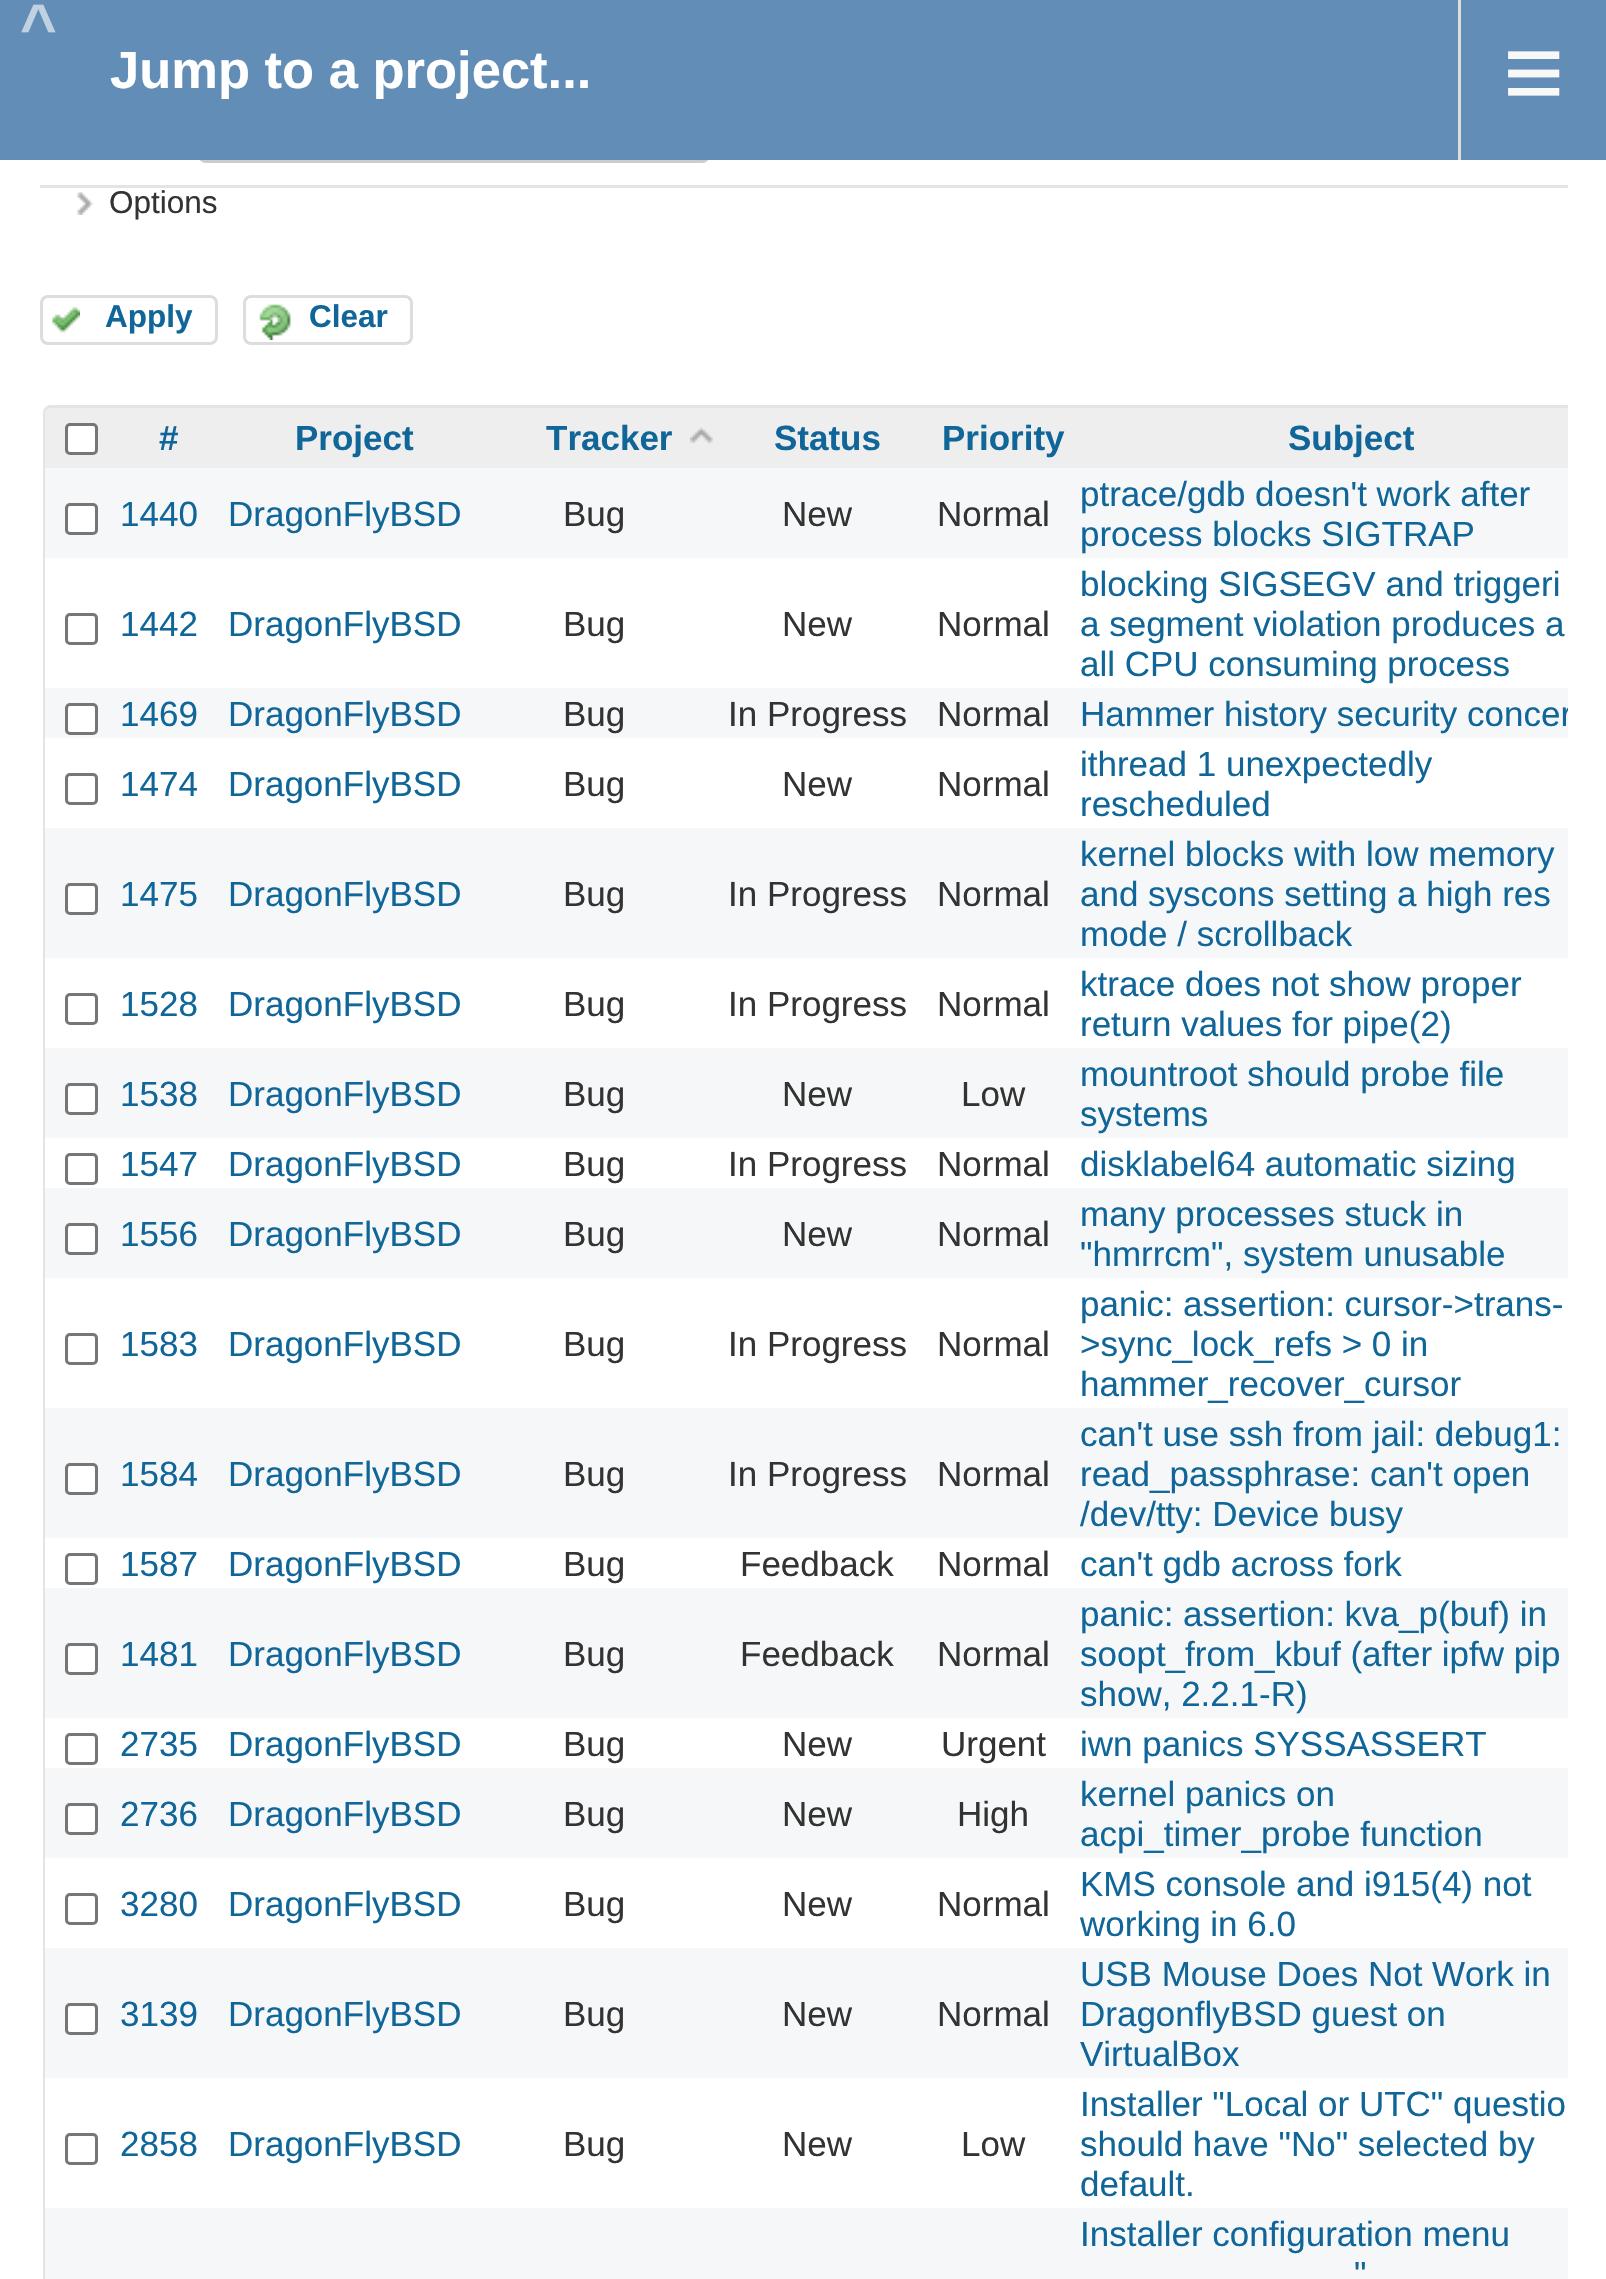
#include "include/core/SkBlurTypes.h"
#include "include/core/SkCanvas.h"
#include "include/core/SkData.h"
#include "include/core/SkFont.h"
#include "include/core/SkFontMgr.h"
#include "include/core/SkImage.h"
#include "include/core/SkMaskFilter.h"
#include "include/core/SkPaint.h"
#include "include/core/SkPathBuilder.h"
#include "include/core/SkTextBlob.h"
#include "include/effects/SkDashPathEffect.h"
#include "include/effects/SkGradientShader.h"
#include "include/utils/SkParsePath.h"

extern sk_sp<SkFontMgr> fontMgr;

void draw(SkCanvas* canvas) {
  SkPaint p;
  p.setAntiAlias(true);
  auto spacedText = [&](const char* s, float x, float y, const SkFont& font, const SkPaint& ink, float letter, float word) {
    std::vector<SkGlyphID> glyphs(font.countText(s, strlen(s), SkTextEncoding::kUTF8));
    std::vector<float> xs(glyphs.size());
    font.textToGlyphs(s, strlen(s), SkTextEncoding::kUTF8, glyphs);
    font.getXPos(glyphs, xs, x);
    float extra = 0;
    for (size_t i = 0; i < glyphs.size(); i++) {
      xs[i] += extra;
      extra += letter + word * (glyphs[i] == font.unicharToGlyph(' '));
    }
    canvas->drawTextBlob(SkTextBlob::MakeFromPosHGlyphs(glyphs, xs, y, font), 0, 0, ink);
  };
  canvas->clear(SK_ColorWHITE);
  p.setStyle(SkPaint::kStroke_Style);
  p.setStrokeWidth(3);
  p.setColor(SkColorSetRGB(204, 204, 204));
  canvas->drawRoundRect(SkRect::MakeLTRB(199.5f, 104.5f, 708.5f, 161.5f), 6.5f, 6.5f, p);
  p.setStyle(SkPaint::kFill_Style);
  p.setColor(SkColorSetRGB(98, 141, 182));
  canvas->drawRect(SkRect::MakeLTRB(0, 0, 1606, 160), p);
  p.setColor(SkColorSetRGB(221, 221, 221));
  canvas->drawRect(SkRect::MakeLTRB(1458, 0, 1461, 160), p);
  p.setColor(SkColorSetRGB(228, 228, 228));
  canvas->drawRect(SkRect::MakeLTRB(40, 185, 1568, 188), p);
  canvas->drawImageRect(SkImages::DeferredFromEncodedData(SkData::MakeFromFileName("images/1.png")), SkRect::MakeLTRB(77, 192, 94, 215), SkSamplingOptions());
  canvas->drawImageRect(SkImages::DeferredFromEncodedData(SkData::MakeFromFileName("images/2.png")), SkRect::MakeLTRB(52, 306, 80, 333), SkSamplingOptions());
  p.setStyle(SkPaint::kStroke_Style);
  p.setColor(SkColorSetRGB(221, 221, 221));
  canvas->drawRoundRect(SkRect::MakeLTRB(41.5f, 296.5f, 216.5f, 343.5f), 6.5f, 6.5f, p);
  canvas->drawImageRect(SkImages::DeferredFromEncodedData(SkData::MakeFromFileName("images/3.png")), SkRect::MakeLTRB(259, 304, 291, 340), SkSamplingOptions());
  canvas->drawRoundRect(SkRect::MakeLTRB(244.5f, 296.5f, 411.5f, 343.5f), 6.5f, 6.5f, p);
  canvas->save();
  canvas->clipRect(SkRect::MakeLTRB(40, 403, 1568, 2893));
  p.setColor(SkColorSetRGB(228, 228, 228));
  canvas->drawRoundRect(SkRect::MakeLTRB(44.5f, 406.5f, 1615.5f, 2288.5f), 6.5f, 6.5f, p);
  canvas->restore();
  p.setStyle(SkPaint::kFill_Style);
  p.setColor(SkColorSetRGB(238, 238, 238));
  canvas->drawPath(SkPathBuilder().moveTo(50, 408).lineTo(115, 408).lineTo(115, 468).lineTo(45, 468).lineTo(45, 413).cubicTo(45, 410, 47, 408, 50, 408).close().detach(), p);
  p.setColor(SK_ColorWHITE);
  canvas->drawRoundRect(SkRect::MakeLTRB(66.5f, 424.5f, 96.5f, 453.5f), 3.5f, 3.5f, p);
  p.setStyle(SkPaint::kStroke_Style);
  p.setColor(SkColorSetRGB(118, 118, 118));
  canvas->drawRoundRect(SkRect::MakeLTRB(66.5f, 424.5f, 96.5f, 453.5f), 3.5f, 3.5f, p);
  p.setStyle(SkPaint::kFill_Style);
  p.setColor(SkColorSetRGB(238, 238, 238));
  canvas->drawRect(SkRect::MakeLTRB(115, 408, 1568, 468), p);
  canvas->drawImageRect(SkImages::DeferredFromEncodedData(SkData::MakeFromFileName("images/4.png")), SkRect::MakeLTRB(690, 427, 713, 444), SkSamplingOptions());
  p.setColor(SkColorSetRGB(246, 247, 248));
  canvas->drawRect(SkRect::MakeLTRB(45, 468, 1568, 558), p);
  p.setColor(SK_ColorWHITE);
  canvas->drawRoundRect(SkRect::MakeLTRB(66.5f, 504.5f, 96.5f, 533.5f), 3.5f, 3.5f, p);
  p.setStyle(SkPaint::kStroke_Style);
  p.setColor(SkColorSetRGB(118, 118, 118));
  canvas->drawRoundRect(SkRect::MakeLTRB(66.5f, 504.5f, 96.5f, 533.5f), 3.5f, 3.5f, p);
  p.setStyle(SkPaint::kFill_Style);
  p.setColor(SK_ColorWHITE);
  canvas->drawRect(SkRect::MakeLTRB(45, 558, 46, 688), p);
  p.setStyle(SkPaint::kStroke_Style);
  p.setColor(SkColorSetRGB(118, 118, 118));
  canvas->drawRoundRect(SkRect::MakeLTRB(66.5f, 614.5f, 96.5f, 643.5f), 3.5f, 3.5f, p);
  p.setStyle(SkPaint::kFill_Style);
  p.setColor(SkColorSetRGB(246, 247, 248));
  canvas->drawRect(SkRect::MakeLTRB(45, 688, 1568, 738), p);
  p.setColor(SK_ColorWHITE);
  canvas->drawRoundRect(SkRect::MakeLTRB(66.5f, 704.5f, 96.5f, 733.5f), 3.5f, 3.5f, p);
  p.setStyle(SkPaint::kStroke_Style);
  p.setColor(SkColorSetRGB(118, 118, 118));
  canvas->drawRoundRect(SkRect::MakeLTRB(66.5f, 704.5f, 96.5f, 733.5f), 3.5f, 3.5f, p);
  p.setStyle(SkPaint::kFill_Style);
  p.setColor(SK_ColorWHITE);
  canvas->drawRect(SkRect::MakeLTRB(45, 738, 46, 828), p);
  p.setStyle(SkPaint::kStroke_Style);
  p.setColor(SkColorSetRGB(118, 118, 118));
  canvas->drawRoundRect(SkRect::MakeLTRB(66.5f, 774.5f, 96.5f, 803.5f), 3.5f, 3.5f, p);
  p.setStyle(SkPaint::kFill_Style);
  p.setColor(SkColorSetRGB(246, 247, 248));
  canvas->drawRect(SkRect::MakeLTRB(45, 828, 1568, 958), p);
  p.setColor(SK_ColorWHITE);
  canvas->drawRoundRect(SkRect::MakeLTRB(66.5f, 884.5f, 96.5f, 913.5f), 3.5f, 3.5f, p);
  p.setStyle(SkPaint::kStroke_Style);
  p.setColor(SkColorSetRGB(118, 118, 118));
  canvas->drawRoundRect(SkRect::MakeLTRB(66.5f, 884.5f, 96.5f, 913.5f), 3.5f, 3.5f, p);
  p.setStyle(SkPaint::kFill_Style);
  p.setColor(SK_ColorWHITE);
  canvas->drawRect(SkRect::MakeLTRB(45, 958, 46, 1048), p);
  p.setStyle(SkPaint::kStroke_Style);
  p.setColor(SkColorSetRGB(118, 118, 118));
  canvas->drawRoundRect(SkRect::MakeLTRB(66.5f, 994.5f, 96.5f, 1023.5f), 3.5f, 3.5f, p);
  p.setStyle(SkPaint::kFill_Style);
  p.setColor(SkColorSetRGB(246, 247, 248));
  canvas->drawRect(SkRect::MakeLTRB(45, 1048, 1568, 1138), p);
  p.setColor(SK_ColorWHITE);
  canvas->drawRoundRect(SkRect::MakeLTRB(66.5f, 1084.5f, 96.5f, 1113.5f), 3.5f, 3.5f, p);
  p.setStyle(SkPaint::kStroke_Style);
  p.setColor(SkColorSetRGB(118, 118, 118));
  canvas->drawRoundRect(SkRect::MakeLTRB(66.5f, 1084.5f, 96.5f, 1113.5f), 3.5f, 3.5f, p);
  p.setStyle(SkPaint::kFill_Style);
  p.setColor(SK_ColorWHITE);
  canvas->drawRect(SkRect::MakeLTRB(45, 1138, 46, 1188), p);
  p.setStyle(SkPaint::kStroke_Style);
  p.setColor(SkColorSetRGB(118, 118, 118));
  canvas->drawRoundRect(SkRect::MakeLTRB(66.5f, 1154.5f, 96.5f, 1183.5f), 3.5f, 3.5f, p);
  p.setStyle(SkPaint::kFill_Style);
  p.setColor(SkColorSetRGB(246, 247, 248));
  canvas->drawRect(SkRect::MakeLTRB(45, 1188, 1568, 1278), p);
  p.setColor(SK_ColorWHITE);
  canvas->drawRoundRect(SkRect::MakeLTRB(66.5f, 1224.5f, 96.5f, 1253.5f), 3.5f, 3.5f, p);
  p.setStyle(SkPaint::kStroke_Style);
  p.setColor(SkColorSetRGB(118, 118, 118));
  canvas->drawRoundRect(SkRect::MakeLTRB(66.5f, 1224.5f, 96.5f, 1253.5f), 3.5f, 3.5f, p);
  p.setStyle(SkPaint::kFill_Style);
  p.setColor(SK_ColorWHITE);
  canvas->drawRect(SkRect::MakeLTRB(45, 1278, 46, 1408), p);
  p.setStyle(SkPaint::kStroke_Style);
  p.setColor(SkColorSetRGB(118, 118, 118));
  canvas->drawRoundRect(SkRect::MakeLTRB(66.5f, 1334.5f, 96.5f, 1363.5f), 3.5f, 3.5f, p);
  p.setStyle(SkPaint::kFill_Style);
  p.setColor(SkColorSetRGB(246, 247, 248));
  canvas->drawRect(SkRect::MakeLTRB(45, 1408, 1568, 1538), p);
  p.setColor(SK_ColorWHITE);
  canvas->drawRoundRect(SkRect::MakeLTRB(66.5f, 1464.5f, 96.5f, 1493.5f), 3.5f, 3.5f, p);
  p.setStyle(SkPaint::kStroke_Style);
  p.setColor(SkColorSetRGB(118, 118, 118));
  canvas->drawRoundRect(SkRect::MakeLTRB(66.5f, 1464.5f, 96.5f, 1493.5f), 3.5f, 3.5f, p);
  p.setStyle(SkPaint::kFill_Style);
  p.setColor(SK_ColorWHITE);
  canvas->drawRect(SkRect::MakeLTRB(45, 1538, 46, 1588), p);
  p.setStyle(SkPaint::kStroke_Style);
  p.setColor(SkColorSetRGB(118, 118, 118));
  canvas->drawRoundRect(SkRect::MakeLTRB(66.5f, 1554.5f, 96.5f, 1583.5f), 3.5f, 3.5f, p);
  p.setStyle(SkPaint::kFill_Style);
  p.setColor(SkColorSetRGB(246, 247, 248));
  canvas->drawRect(SkRect::MakeLTRB(45, 1588, 1568, 1718), p);
  p.setColor(SK_ColorWHITE);
  canvas->drawRoundRect(SkRect::MakeLTRB(66.5f, 1644.5f, 96.5f, 1673.5f), 3.5f, 3.5f, p);
  p.setStyle(SkPaint::kStroke_Style);
  p.setColor(SkColorSetRGB(118, 118, 118));
  canvas->drawRoundRect(SkRect::MakeLTRB(66.5f, 1644.5f, 96.5f, 1673.5f), 3.5f, 3.5f, p);
  p.setStyle(SkPaint::kFill_Style);
  p.setColor(SK_ColorWHITE);
  canvas->drawRect(SkRect::MakeLTRB(45, 1718, 46, 1768), p);
  p.setStyle(SkPaint::kStroke_Style);
  p.setColor(SkColorSetRGB(118, 118, 118));
  canvas->drawRoundRect(SkRect::MakeLTRB(66.5f, 1734.5f, 96.5f, 1763.5f), 3.5f, 3.5f, p);
  p.setStyle(SkPaint::kFill_Style);
  p.setColor(SkColorSetRGB(246, 247, 248));
  canvas->drawRect(SkRect::MakeLTRB(45, 1768, 1568, 1858), p);
  p.setColor(SK_ColorWHITE);
  canvas->drawRoundRect(SkRect::MakeLTRB(66.5f, 1804.5f, 96.5f, 1833.5f), 3.5f, 3.5f, p);
  p.setStyle(SkPaint::kStroke_Style);
  p.setColor(SkColorSetRGB(118, 118, 118));
  canvas->drawRoundRect(SkRect::MakeLTRB(66.5f, 1804.5f, 96.5f, 1833.5f), 3.5f, 3.5f, p);
  p.setStyle(SkPaint::kFill_Style);
  p.setColor(SK_ColorWHITE);
  canvas->drawRect(SkRect::MakeLTRB(45, 1858, 46, 1948), p);
  p.setStyle(SkPaint::kStroke_Style);
  p.setColor(SkColorSetRGB(118, 118, 118));
  canvas->drawRoundRect(SkRect::MakeLTRB(66.5f, 1894.5f, 96.5f, 1923.5f), 3.5f, 3.5f, p);
  p.setStyle(SkPaint::kFill_Style);
  p.setColor(SkColorSetRGB(246, 247, 248));
  canvas->drawRect(SkRect::MakeLTRB(45, 1948, 1568, 2078), p);
  p.setColor(SK_ColorWHITE);
  canvas->drawRoundRect(SkRect::MakeLTRB(66.5f, 2004.5f, 96.5f, 2033.5f), 3.5f, 3.5f, p);
  p.setStyle(SkPaint::kStroke_Style);
  p.setColor(SkColorSetRGB(118, 118, 118));
  canvas->drawRoundRect(SkRect::MakeLTRB(66.5f, 2004.5f, 96.5f, 2033.5f), 3.5f, 3.5f, p);
  p.setStyle(SkPaint::kFill_Style);
  p.setColor(SK_ColorWHITE);
  canvas->drawRect(SkRect::MakeLTRB(45, 2078, 46, 2208), p);
  p.setStyle(SkPaint::kStroke_Style);
  p.setColor(SkColorSetRGB(118, 118, 118));
  canvas->drawRoundRect(SkRect::MakeLTRB(66.5f, 2134.5f, 96.5f, 2163.5f), 3.5f, 3.5f, p);
  p.setStyle(SkPaint::kFill_Style);
  p.setColor(SkColorSetRGB(246, 247, 248));
  canvas->drawRect(SkRect::MakeLTRB(45, 2208, 1568, 2279), p);
  SkFont font1(fontMgr->matchFamilyStyle("Liberation Sans", SkFontStyle::Bold()), 63);
  font1.setSubpixel(true);
  p.setColor(SkColorSetRGB(192, 209, 226));
  spacedText("^", 20, 48, font1, p, 9, 0);
  SkFont font2(fontMgr->matchFamilyStyle("Liberation Sans", SkFontStyle::Bold()), 52.5f);
  font2.setSubpixel(true);
  p.setColor(SK_ColorWHITE);
  canvas->drawString("Jump to a project...", 110, 88, font2, p);
  SkFont font3(fontMgr->matchFamilyStyle("Liberation Sans", SkFontStyle::Normal()), 105);
  font3.setSubpixel(true);
  p.setColor(SkColorSetRGB(248, 248, 248));
  canvas->drawString("≡", 1503, 108, font3, p);
  SkFont font4(fontMgr->matchFamilyStyle("Liberation Sans", SkFontStyle::Normal()), 31.5f);
  font4.setSubpixel(true);
  p.setColor(SkColorSetRGB(51, 51, 51));
  canvas->drawString("Options", 109, 213, font4, p);
  SkFont font5(fontMgr->matchFamilyStyle("Liberation Sans", SkFontStyle::Bold()), 31.5f);
  font5.setSubpixel(true);
  p.setColor(SkColorSetRGB(17, 102, 153));
  canvas->drawString("Apply", 105, 327, font5, p);
  canvas->drawString("Clear", 309, 327, font5, p);
  SkFont font6(fontMgr->matchFamilyStyle("Liberation Sans", SkFontStyle::Bold()), 35);
  font6.setSubpixel(true);
  canvas->drawString("#", 159, 450, font6, p);
  canvas->drawString("Project", 295, 450, font6, p);
  canvas->drawString("Tracker", 546, 450, font6, p);
  canvas->drawString("Status", 774, 450, font6, p);
  canvas->drawString("Priority", 942, 450, font6, p);
  canvas->drawString("Subject", 1288, 450, font6, p);
  SkFont font7(fontMgr->matchFamilyStyle("Liberation Sans", SkFontStyle::Normal()), 35);
  font7.setSubpixel(true);
  canvas->drawString("1440", 120, 526, font7, p);
  canvas->drawString("DragonFlyBSD", 228, 526, font7, p);
  p.setColor(SkColorSetRGB(51, 51, 51));
  canvas->drawString("Bug", 563, 526, font7, p);
  canvas->drawString("New", 782, 526, font7, p);
  canvas->drawString("Normal", 937, 526, font7, p);
  p.setColor(SkColorSetRGB(17, 102, 153));
  canvas->drawString("ptrace/gdb doesn't work after", 1080, 506, font7, p);
  canvas->drawString("process blocks SIGTRAP", 1080, 546, font7, p);
  canvas->drawString("1442", 120, 636, font7, p);
  canvas->drawString("DragonFlyBSD", 228, 636, font7, p);
  p.setColor(SkColorSetRGB(51, 51, 51));
  canvas->drawString("Bug", 563, 636, font7, p);
  canvas->drawString("New", 782, 636, font7, p);
  canvas->drawString("Normal", 937, 636, font7, p);
  p.setColor(SkColorSetRGB(17, 102, 153));
  canvas->drawString("blocking SIGSEGV and triggeri", 1080, 596, font7, p);
  canvas->drawString("a segment violation produces a", 1080, 636, font7, p);
  canvas->drawString("all CPU consuming process", 1080, 676, font7, p);
  canvas->drawString("1469", 120, 726, font7, p);
  canvas->drawString("DragonFlyBSD", 228, 726, font7, p);
  p.setColor(SkColorSetRGB(51, 51, 51));
  canvas->drawString("Bug", 563, 726, font7, p);
  canvas->drawString("In Progress", 728, 726, font7, p);
  canvas->drawString("Normal", 937, 726, font7, p);
  canvas->save();
  canvas->clipRect(SkRect::MakeLTRB(40, 403, 1568, 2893));
  p.setColor(SkColorSetRGB(17, 102, 153));
  canvas->drawString("Hammer history security concer", 1080, 726, font7, p);
  canvas->restore();
  canvas->drawString("1474", 120, 796, font7, p);
  canvas->drawString("DragonFlyBSD", 228, 796, font7, p);
  p.setColor(SkColorSetRGB(51, 51, 51));
  canvas->drawString("Bug", 563, 796, font7, p);
  canvas->drawString("New", 782, 796, font7, p);
  canvas->drawString("Normal", 937, 796, font7, p);
  p.setColor(SkColorSetRGB(17, 102, 153));
  canvas->drawString("ithread 1 unexpectedly", 1080, 776, font7, p);
  canvas->drawString("rescheduled", 1080, 816, font7, p);
  canvas->drawString("1475", 120, 906, font7, p);
  canvas->drawString("DragonFlyBSD", 228, 906, font7, p);
  p.setColor(SkColorSetRGB(51, 51, 51));
  canvas->drawString("Bug", 563, 906, font7, p);
  canvas->drawString("In Progress", 728, 906, font7, p);
  canvas->drawString("Normal", 937, 906, font7, p);
  p.setColor(SkColorSetRGB(17, 102, 153));
  canvas->drawString("kernel blocks with low memory", 1080, 866, font7, p);
  canvas->drawString("and syscons setting a high res", 1080, 906, font7, p);
  canvas->drawString("mode / scrollback", 1080, 946, font7, p);
  canvas->drawString("1528", 120, 1016, font7, p);
  canvas->drawString("DragonFlyBSD", 228, 1016, font7, p);
  p.setColor(SkColorSetRGB(51, 51, 51));
  canvas->drawString("Bug", 563, 1016, font7, p);
  canvas->drawString("In Progress", 728, 1016, font7, p);
  canvas->drawString("Normal", 937, 1016, font7, p);
  p.setColor(SkColorSetRGB(17, 102, 153));
  canvas->drawString("ktrace does not show proper", 1080, 996, font7, p);
  canvas->drawString("return values for pipe(2)", 1080, 1036, font7, p);
  canvas->drawString("1538", 120, 1106, font7, p);
  canvas->drawString("DragonFlyBSD", 228, 1106, font7, p);
  p.setColor(SkColorSetRGB(51, 51, 51));
  canvas->drawString("Bug", 563, 1106, font7, p);
  canvas->drawString("New", 782, 1106, font7, p);
  canvas->drawString("Low", 961, 1106, font7, p);
  p.setColor(SkColorSetRGB(17, 102, 153));
  canvas->drawString("mountroot should probe file", 1080, 1086, font7, p);
  canvas->drawString("systems", 1080, 1126, font7, p);
  canvas->drawString("1547", 120, 1176, font7, p);
  canvas->drawString("DragonFlyBSD", 228, 1176, font7, p);
  p.setColor(SkColorSetRGB(51, 51, 51));
  canvas->drawString("Bug", 563, 1176, font7, p);
  canvas->drawString("In Progress", 728, 1176, font7, p);
  canvas->drawString("Normal", 937, 1176, font7, p);
  p.setColor(SkColorSetRGB(17, 102, 153));
  canvas->drawString("disklabel64 automatic sizing", 1080, 1176, font7, p);
  canvas->drawString("1556", 120, 1246, font7, p);
  canvas->drawString("DragonFlyBSD", 228, 1246, font7, p);
  p.setColor(SkColorSetRGB(51, 51, 51));
  canvas->drawString("Bug", 563, 1246, font7, p);
  canvas->drawString("New", 782, 1246, font7, p);
  canvas->drawString("Normal", 937, 1246, font7, p);
  p.setColor(SkColorSetRGB(17, 102, 153));
  canvas->drawString("many processes stuck in", 1080, 1226, font7, p);
  canvas->drawString("\"hmrrcm\", system unusable", 1080, 1266, font7, p);
  canvas->drawString("1583", 120, 1356, font7, p);
  canvas->drawString("DragonFlyBSD", 228, 1356, font7, p);
  p.setColor(SkColorSetRGB(51, 51, 51));
  canvas->drawString("Bug", 563, 1356, font7, p);
  canvas->drawString("In Progress", 728, 1356, font7, p);
  canvas->drawString("Normal", 937, 1356, font7, p);
  p.setColor(SkColorSetRGB(17, 102, 153));
  canvas->drawString("panic: assertion: cursor->trans-", 1080, 1316, font7, p);
  canvas->drawString(">sync_lock_refs > 0 in", 1080, 1356, font7, p);
  canvas->drawString("hammer_recover_cursor", 1080, 1396, font7, p);
  canvas->drawString("1584", 120, 1486, font7, p);
  canvas->drawString("DragonFlyBSD", 228, 1486, font7, p);
  p.setColor(SkColorSetRGB(51, 51, 51));
  canvas->drawString("Bug", 563, 1486, font7, p);
  canvas->drawString("In Progress", 728, 1486, font7, p);
  canvas->drawString("Normal", 937, 1486, font7, p);
  p.setColor(SkColorSetRGB(17, 102, 153));
  canvas->drawString("can't use ssh from jail: debug1:", 1080, 1446, font7, p);
  canvas->drawString("read_passphrase: can't open", 1080, 1486, font7, p);
  canvas->drawString("/dev/tty: Device busy", 1080, 1526, font7, p);
  canvas->drawString("1587", 120, 1576, font7, p);
  canvas->drawString("DragonFlyBSD", 228, 1576, font7, p);
  p.setColor(SkColorSetRGB(51, 51, 51));
  canvas->drawString("Bug", 563, 1576, font7, p);
  canvas->drawString("Feedback", 740, 1576, font7, p);
  canvas->drawString("Normal", 937, 1576, font7, p);
  p.setColor(SkColorSetRGB(17, 102, 153));
  canvas->drawString("can't gdb across fork", 1080, 1576, font7, p);
  canvas->drawString("1481", 120, 1666, font7, p);
  canvas->drawString("DragonFlyBSD", 228, 1666, font7, p);
  p.setColor(SkColorSetRGB(51, 51, 51));
  canvas->drawString("Bug", 563, 1666, font7, p);
  canvas->drawString("Feedback", 740, 1666, font7, p);
  canvas->drawString("Normal", 937, 1666, font7, p);
  p.setColor(SkColorSetRGB(17, 102, 153));
  canvas->drawString("panic: assertion: kva_p(buf) in", 1080, 1626, font7, p);
  canvas->drawString("soopt_from_kbuf (after ipfw pip", 1080, 1666, font7, p);
  canvas->drawString("show, 2.2.1-R)", 1080, 1706, font7, p);
  canvas->drawString("2735", 120, 1756, font7, p);
  canvas->drawString("DragonFlyBSD", 228, 1756, font7, p);
  p.setColor(SkColorSetRGB(51, 51, 51));
  canvas->drawString("Bug", 563, 1756, font7, p);
  canvas->drawString("New", 782, 1756, font7, p);
  canvas->drawString("Urgent", 941, 1756, font7, p);
  p.setColor(SkColorSetRGB(17, 102, 153));
  canvas->drawString("iwn panics SYSSASSERT", 1080, 1756, font7, p);
  canvas->drawString("2736", 120, 1826, font7, p);
  canvas->drawString("DragonFlyBSD", 228, 1826, font7, p);
  p.setColor(SkColorSetRGB(51, 51, 51));
  canvas->drawString("Bug", 563, 1826, font7, p);
  canvas->drawString("New", 782, 1826, font7, p);
  canvas->drawString("High", 957, 1826, font7, p);
  p.setColor(SkColorSetRGB(17, 102, 153));
  canvas->drawString("kernel panics on", 1080, 1806, font7, p);
  canvas->drawString("acpi_timer_probe function", 1080, 1846, font7, p);
  canvas->drawString("3280", 120, 1916, font7, p);
  canvas->drawString("DragonFlyBSD", 228, 1916, font7, p);
  p.setColor(SkColorSetRGB(51, 51, 51));
  canvas->drawString("Bug", 563, 1916, font7, p);
  canvas->drawString("New", 782, 1916, font7, p);
  canvas->drawString("Normal", 937, 1916, font7, p);
  p.setColor(SkColorSetRGB(17, 102, 153));
  canvas->drawString("KMS console and i915(4) not", 1080, 1896, font7, p);
  canvas->drawString("working in 6.0", 1080, 1936, font7, p);
  canvas->drawString("3139", 120, 2026, font7, p);
  canvas->drawString("DragonFlyBSD", 228, 2026, font7, p);
  p.setColor(SkColorSetRGB(51, 51, 51));
  canvas->drawString("Bug", 563, 2026, font7, p);
  canvas->drawString("New", 782, 2026, font7, p);
  canvas->drawString("Normal", 937, 2026, font7, p);
  p.setColor(SkColorSetRGB(17, 102, 153));
  canvas->drawString("USB Mouse Does Not Work in", 1080, 1986, font7, p);
  canvas->drawString("DragonflyBSD guest on", 1080, 2026, font7, p);
  canvas->drawString("VirtualBox", 1080, 2066, font7, p);
  canvas->drawString("2858", 120, 2156, font7, p);
  canvas->drawString("DragonFlyBSD", 228, 2156, font7, p);
  p.setColor(SkColorSetRGB(51, 51, 51));
  canvas->drawString("Bug", 563, 2156, font7, p);
  canvas->drawString("New", 782, 2156, font7, p);
  canvas->drawString("Low", 961, 2156, font7, p);
  p.setColor(SkColorSetRGB(17, 102, 153));
  canvas->drawString("Installer \"Local or UTC\" questio", 1080, 2116, font7, p);
  canvas->drawString("should have \"No\" selected by", 1080, 2156, font7, p);
  canvas->drawString("default.", 1080, 2196, font7, p);
  canvas->drawString("Installer configuration menu", 1080, 2246, font7, p);
  canvas->drawString("\"", 1354, 2286, font7, p);
}
